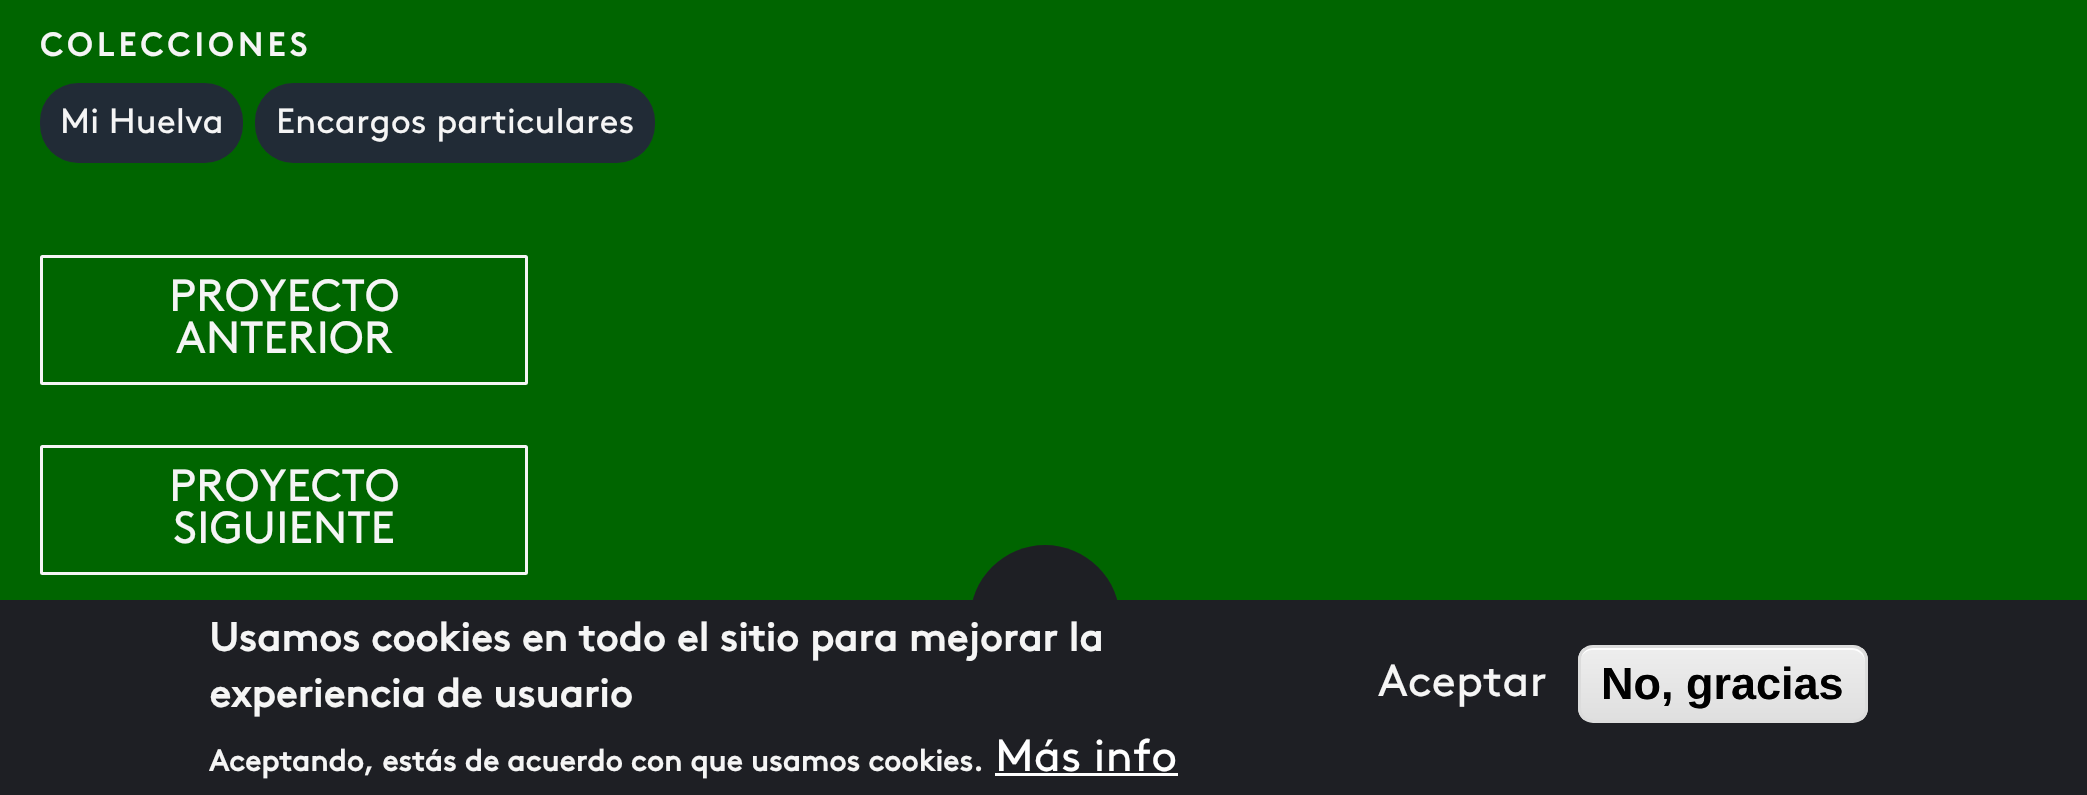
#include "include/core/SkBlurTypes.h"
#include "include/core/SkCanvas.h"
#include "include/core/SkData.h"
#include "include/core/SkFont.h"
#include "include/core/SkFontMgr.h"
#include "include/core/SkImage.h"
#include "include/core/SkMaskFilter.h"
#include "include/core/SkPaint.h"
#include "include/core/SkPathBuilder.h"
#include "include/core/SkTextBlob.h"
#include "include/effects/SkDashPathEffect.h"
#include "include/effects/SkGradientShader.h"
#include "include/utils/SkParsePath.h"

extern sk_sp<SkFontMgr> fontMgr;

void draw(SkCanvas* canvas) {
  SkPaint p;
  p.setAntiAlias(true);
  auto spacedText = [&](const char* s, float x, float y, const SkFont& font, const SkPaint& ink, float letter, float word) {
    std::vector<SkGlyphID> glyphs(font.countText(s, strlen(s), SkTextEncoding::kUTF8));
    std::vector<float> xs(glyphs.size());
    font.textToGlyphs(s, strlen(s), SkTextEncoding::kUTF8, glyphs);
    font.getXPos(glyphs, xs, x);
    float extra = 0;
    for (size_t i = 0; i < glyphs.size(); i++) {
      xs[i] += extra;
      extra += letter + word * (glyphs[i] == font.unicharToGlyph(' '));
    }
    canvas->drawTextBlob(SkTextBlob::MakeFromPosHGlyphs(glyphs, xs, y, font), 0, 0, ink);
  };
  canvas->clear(SkColorSetRGB(0, 101, 0));
  p.setColor(SkColorSetRGB(33, 43, 54));
  canvas->drawRoundRect(SkRect::MakeLTRB(40, 83, 243, 163), 38, 38, p);
  canvas->drawRoundRect(SkRect::MakeLTRB(255, 83, 655, 163), 38, 38, p);
  p.setStyle(SkPaint::kStroke_Style);
  p.setStrokeWidth(3);
  p.setColor(SkColorSetRGB(245, 245, 245));
  canvas->drawRoundRect(SkRect::MakeLTRB(41.5f, 256.5f, 526.5f, 383.5f), 1, 1, p);
  canvas->drawRoundRect(SkRect::MakeLTRB(41.5f, 446.5f, 526.5f, 573.5f), 1, 1, p);
  p.setStyle(SkPaint::kFill_Style);
  p.setColor(SkColorSetRGB(30, 31, 36));
  canvas->drawCircle(1045, 620, 75, p);
  canvas->drawRect(SkRect::MakeLTRB(0, 600, 2087, 795), p);
  p.setColor(SK_ColorWHITE);
  canvas->drawRect(SkRect::MakeLTRB(995, 773, 1178, 776), p);
  canvas->save();
  canvas->clipPath(SkPathBuilder().moveTo(1593, 645).lineTo(1853, 645).cubicTo(1861.5f, 645, 1868, 651.5f, 1868, 660).lineTo(1868, 708).cubicTo(1868, 716.5f, 1861.5f, 723, 1853, 723).lineTo(1593, 723).cubicTo(1584.5f, 723, 1578, 716.5f, 1578, 708).lineTo(1578, 660).cubicTo(1578, 651.5f, 1584.5f, 645, 1593, 645).close().detach(), true);
  {
    const SkColor colors[] = {SkColorSetRGB(237, 237, 237), SkColorSetRGB(223, 223, 223)};
    const float stops[] = {0.05f, 1};
    const SkPoint ends[] = {{1723, 648}, {1723, 720}};
    p.setShader(SkGradientShader::MakeLinear(ends, colors, stops, 2, SkTileMode::kClamp));
    p.setAlpha(255);
  }
  canvas->drawRect(SkRect::MakeLTRB(1578, 648, 1868, 720), p);
  canvas->restore();
  p.setShader(nullptr);
  p.setColor(SK_ColorWHITE);
  canvas->drawPath(SkPathBuilder().moveTo(1592, 650).lineTo(1852, 650).cubicTo(1859, 650, 1865, 656, 1865, 662).lineTo(1865, 661).cubicTo(1865, 654, 1859, 648, 1852, 648).lineTo(1593, 648).cubicTo(1586, 648, 1580, 654, 1580, 661).lineTo(1580, 662).cubicTo(1580, 656, 1586, 650, 1592, 650).close().detach(), p);
  p.setStyle(SkPaint::kStroke_Style);
  p.setColor(SkColorSetRGB(220, 220, 220));
  canvas->drawRoundRect(SkRect::MakeLTRB(1579.5f, 646.5f, 1866.5f, 721.5f), 13.5f, 13.5f, p);
  SkFont font1(fontMgr->matchFamilyStyle("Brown", SkFontStyle::Bold()), 32.5f);
  font1.setSubpixel(true);
  p.setStyle(SkPaint::kFill_Style);
  p.setColor(SkColorSetRGB(245, 245, 245));
  spacedText("COLECCIONES", 40, 56, font1, p, 4.6f, 0);
  SkFont font2(fontMgr->matchFamilyStyle("Brown", SkFontStyle::Normal()), 35);
  font2.setSubpixel(true);
  canvas->drawString("Mi Huelva", 60, 133, font2, p);
  canvas->drawString("Encargos particulares", 276, 133, font2, p);
  SkFont font3(fontMgr->matchFamilyStyle("Brown", SkFontStyle::Normal()), 45);
  font3.setSubpixel(true);
  canvas->drawString("PROYECTO", 169, 311, font3, p);
  canvas->drawString("ANTERIOR", 176, 353, font3, p);
  canvas->drawString("PROYECTO", 169, 501, font3, p);
  canvas->drawString("SIGUIENTE", 173, 543, font3, p);
  SkFont font4(fontMgr->matchFamilyStyle("Brown", SkFontStyle::Bold()), 40);
  font4.setSubpixel(true);
  canvas->drawString("Usamos cookies en todo el sitio para mejorar la", 209, 651, font4, p);
  canvas->drawString("experiencia de usuario", 209, 707, font4, p);
  SkFont font5(fontMgr->matchFamilyStyle("Brown", SkFontStyle::Bold()), 30);
  font5.setSubpixel(true);
  canvas->drawString("Aceptando, estás de acuerdo con que usamos cookies.", 209, 771, font5, p);
  p.setColor(SK_ColorWHITE);
  canvas->drawString("Más info", 995, 771, font3, p);
  p.setColor(SkColorSetRGB(245, 245, 245));
  canvas->drawString("Aceptar", 1378, 696, font3, p);
  SkFont font6(fontMgr->matchFamilyStyle("Liberation Sans", SkFontStyle::Bold()), 45);
  font6.setSubpixel(true);
  p.setColor(SK_ColorBLACK);
  canvas->drawString("No, gracias", 1601, 699, font6, p);
}
